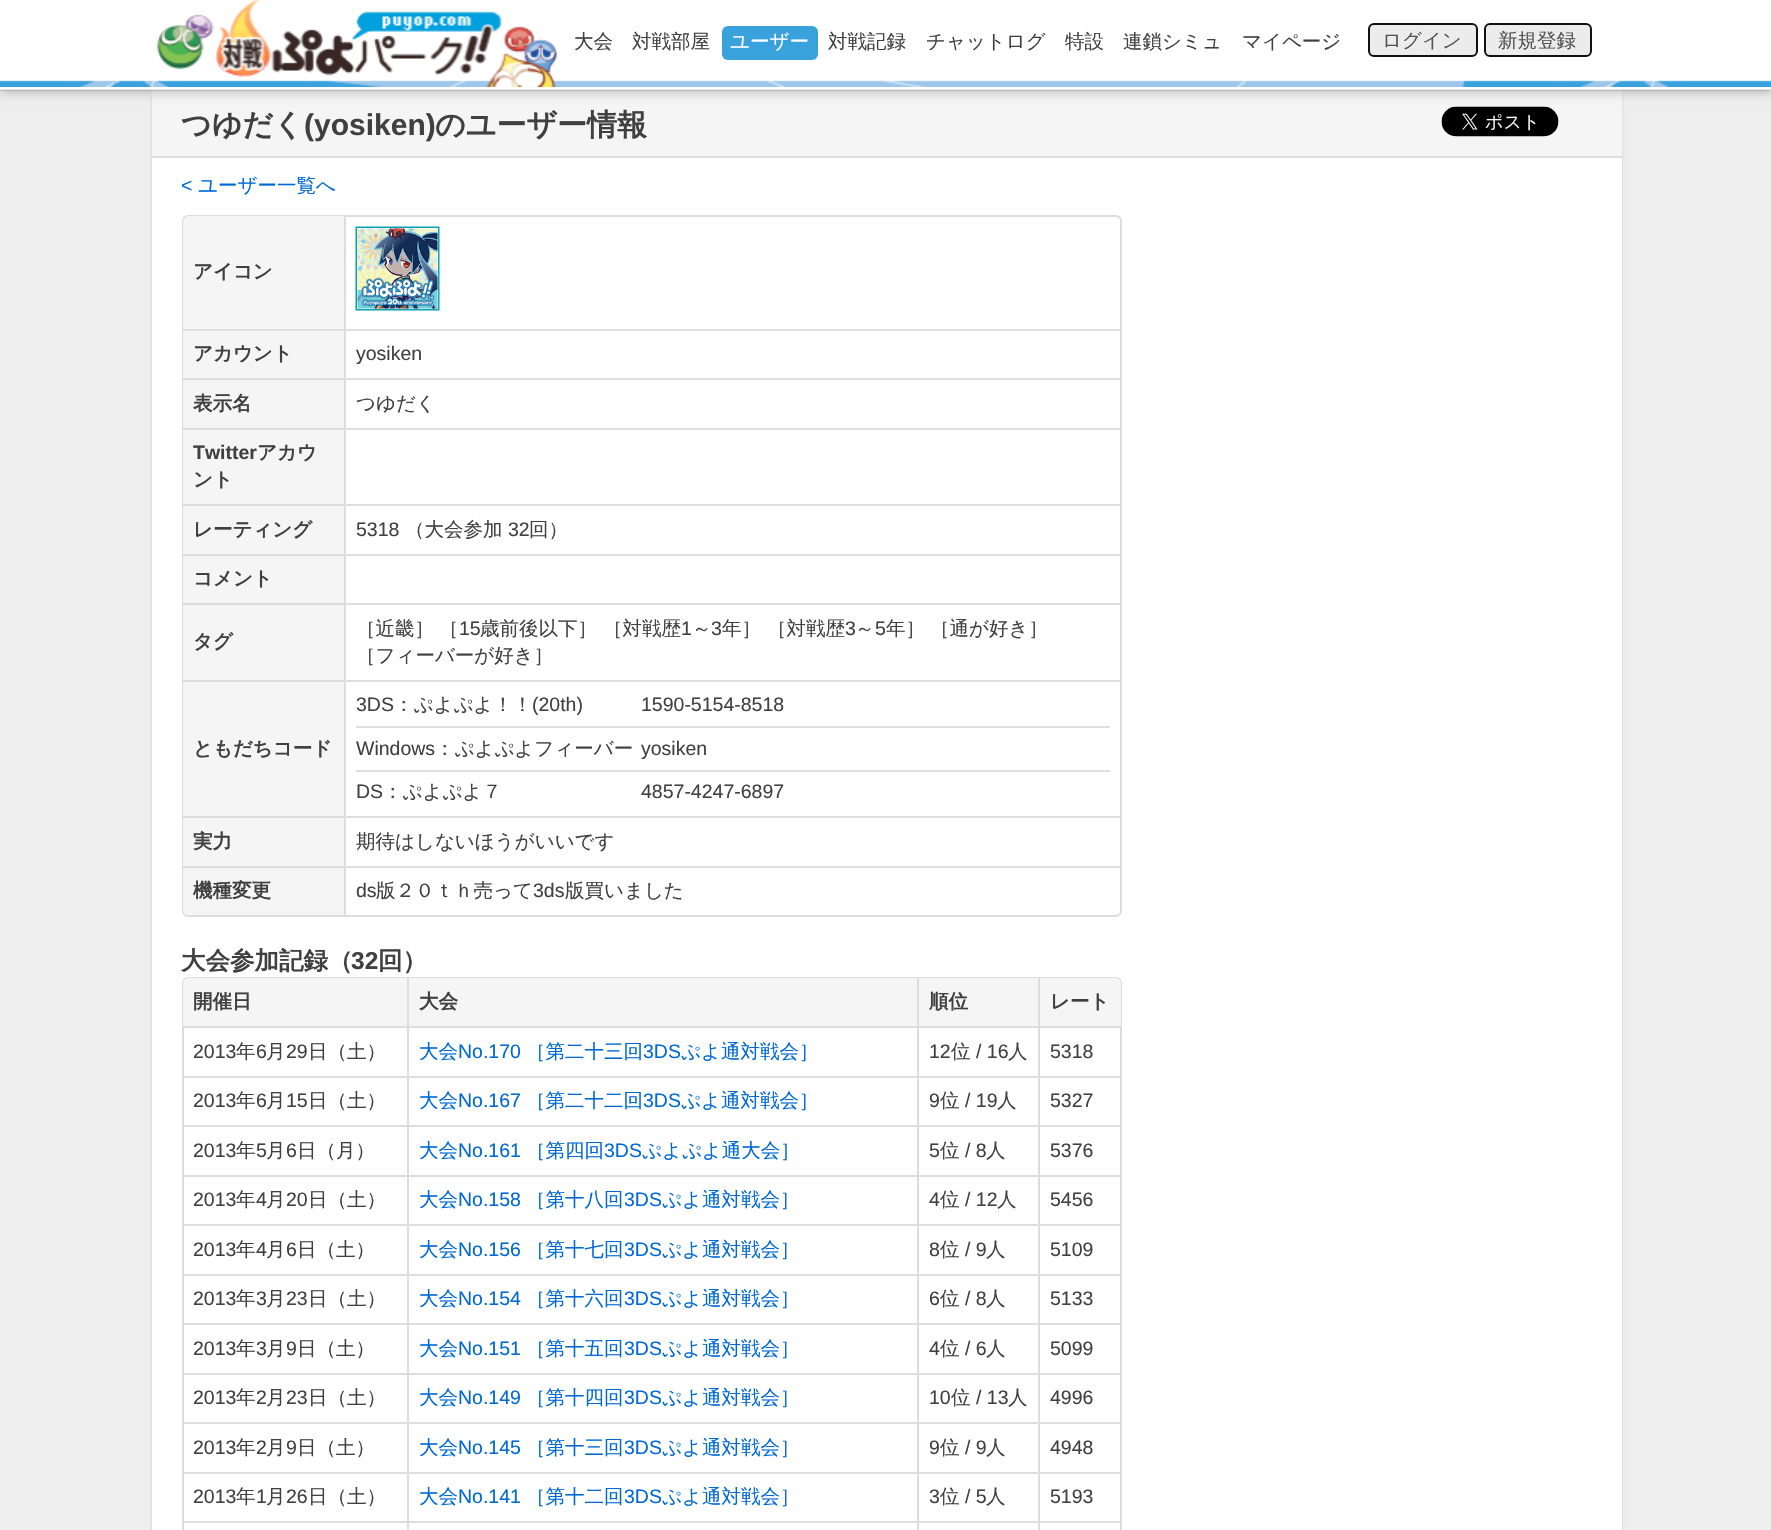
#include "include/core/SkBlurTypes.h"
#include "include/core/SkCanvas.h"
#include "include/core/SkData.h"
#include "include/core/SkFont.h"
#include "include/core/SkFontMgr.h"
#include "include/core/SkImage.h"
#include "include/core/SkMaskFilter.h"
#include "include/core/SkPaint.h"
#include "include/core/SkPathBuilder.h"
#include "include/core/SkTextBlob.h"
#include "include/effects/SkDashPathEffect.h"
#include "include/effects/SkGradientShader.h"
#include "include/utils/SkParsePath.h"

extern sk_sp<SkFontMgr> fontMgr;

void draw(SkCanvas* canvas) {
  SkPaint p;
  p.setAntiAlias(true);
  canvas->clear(SkColorSetRGB(238, 238, 238));
  p.setColor(SkColorSetARGB(38, 0, 0, 0));
  p.setMaskFilter(SkMaskFilter::MakeBlur(kNormal_SkBlurStyle, 1.5f));
  canvas->drawRoundRect(SkRect::MakeLTRB(152, 89, 1622, 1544), 9, 9, p);
  p.setMaskFilter(nullptr);
  p.setColor(SkColorSetRGB(245, 245, 245));
  canvas->drawRect(SkRect::MakeLTRB(152, 90, 1622, 156), p);
  canvas->drawImageRect(SkImages::DeferredFromEncodedData(SkData::MakeFromFileName("images/3.png")), SkRect::MakeLTRB(1441, 106, 1559, 137), SkSamplingOptions());
  p.setColor(SkColorSetARGB(64, 0, 0, 0));
  p.setMaskFilter(SkMaskFilter::MakeBlur(kNormal_SkBlurStyle, 5));
  canvas->drawRect(SkRect::MakeLTRB(0, 2, 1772, 92), p);
  p.setMaskFilter(nullptr);
  p.setColor(SK_ColorWHITE);
  canvas->drawRect(SkRect::MakeLTRB(0, 0, 1771, 90), p);
  canvas->drawImageRect(SkImages::DeferredFromEncodedData(SkData::MakeFromFileName("images/1.png")), SkRect::MakeLTRB(0, 80, 1771, 87), SkSamplingOptions());
  p.setColor(SkColorSetARGB(26, 0, 0, 0));
  canvas->drawRect(SkRect::MakeLTRB(0, 89, 1771, 91), p);
  canvas->drawImageRect(SkImages::DeferredFromEncodedData(SkData::MakeFromFileName("images/2.png")), SkRect::MakeLTRB(157, 0, 557, 87), SkSamplingOptions());
  p.setColor(SkColorSetRGB(57, 161, 219));
  canvas->drawRoundRect(SkRect::MakeLTRB(722, 26, 818, 60), 6, 6, p);
  p.setColor(SkColorSetRGB(236, 236, 236));
  canvas->drawRoundRect(SkRect::MakeLTRB(1369, 24, 1477, 56), 5, 5, p);
  p.setStyle(SkPaint::kStroke_Style);
  p.setStrokeWidth(2);
  p.setColor(SkColorSetRGB(17, 17, 17));
  canvas->drawRoundRect(SkRect::MakeLTRB(1369, 24, 1477, 56), 5, 5, p);
  p.setStyle(SkPaint::kFill_Style);
  p.setColor(SkColorSetRGB(236, 236, 236));
  canvas->drawRoundRect(SkRect::MakeLTRB(1485, 24, 1591, 56), 5, 5, p);
  p.setStyle(SkPaint::kStroke_Style);
  p.setColor(SkColorSetRGB(17, 17, 17));
  canvas->drawRoundRect(SkRect::MakeLTRB(1485, 24, 1591, 56), 5, 5, p);
  p.setStyle(SkPaint::kFill_Style);
  p.setColor(SK_ColorWHITE);
  canvas->drawRect(SkRect::MakeLTRB(152, 158, 1622, 1530), p);
  p.setColor(SkColorSetRGB(221, 221, 221));
  canvas->drawRect(SkRect::MakeLTRB(152, 156, 1622, 158), p);
  p.setStyle(SkPaint::kStroke_Style);
  canvas->drawRoundRect(SkRect::MakeLTRB(183, 216, 1121, 916), 5, 5, p);
  p.setStyle(SkPaint::kFill_Style);
  p.setColor(SkColorSetRGB(245, 245, 245));
  canvas->drawPath(SkPathBuilder().moveTo(189, 216).lineTo(344, 216).lineTo(344, 329).lineTo(183, 329).lineTo(183, 222).cubicTo(183, 218.5f, 185.5f, 216, 189, 216).close().detach(), p);
  p.setColor(SkColorSetRGB(221, 221, 221));
  canvas->drawRect(SkRect::MakeLTRB(344, 216, 346, 329), p);
  canvas->drawImageRect(SkImages::DeferredFromEncodedData(SkData::MakeFromFileName("images/4.png")), SkRect::MakeLTRB(355, 226, 440, 311), SkSamplingOptions());
  p.setColor(SkColorSetRGB(245, 245, 245));
  canvas->drawRect(SkRect::MakeLTRB(183, 331, 344, 378), p);
  p.setColor(SkColorSetRGB(221, 221, 221));
  canvas->drawRect(SkRect::MakeLTRB(183, 329, 1121, 331), p);
  canvas->drawRect(SkRect::MakeLTRB(344, 329, 346, 378), p);
  p.setColor(SkColorSetRGB(245, 245, 245));
  canvas->drawRect(SkRect::MakeLTRB(183, 380, 344, 428), p);
  p.setColor(SkColorSetRGB(221, 221, 221));
  canvas->drawRect(SkRect::MakeLTRB(183, 378, 1121, 380), p);
  canvas->drawRect(SkRect::MakeLTRB(344, 378, 346, 428), p);
  p.setColor(SkColorSetRGB(245, 245, 245));
  canvas->drawRect(SkRect::MakeLTRB(183, 430, 344, 504), p);
  p.setColor(SkColorSetRGB(221, 221, 221));
  canvas->drawRect(SkRect::MakeLTRB(183, 428, 1121, 430), p);
  canvas->drawRect(SkRect::MakeLTRB(344, 428, 346, 504), p);
  p.setColor(SkColorSetRGB(245, 245, 245));
  canvas->drawRect(SkRect::MakeLTRB(183, 506, 344, 554), p);
  p.setColor(SkColorSetRGB(221, 221, 221));
  canvas->drawRect(SkRect::MakeLTRB(183, 504, 1121, 506), p);
  canvas->drawRect(SkRect::MakeLTRB(344, 504, 346, 554), p);
  p.setColor(SkColorSetRGB(245, 245, 245));
  canvas->drawRect(SkRect::MakeLTRB(183, 556, 344, 603), p);
  p.setColor(SkColorSetRGB(221, 221, 221));
  canvas->drawRect(SkRect::MakeLTRB(183, 554, 1121, 556), p);
  canvas->drawRect(SkRect::MakeLTRB(344, 554, 346, 603), p);
  p.setColor(SkColorSetRGB(245, 245, 245));
  canvas->drawRect(SkRect::MakeLTRB(183, 605, 344, 680), p);
  p.setColor(SkColorSetRGB(221, 221, 221));
  canvas->drawRect(SkRect::MakeLTRB(183, 603, 1121, 605), p);
  canvas->drawRect(SkRect::MakeLTRB(344, 603, 346, 680), p);
  p.setColor(SkColorSetRGB(245, 245, 245));
  canvas->drawRect(SkRect::MakeLTRB(183, 682, 344, 816), p);
  p.setColor(SkColorSetRGB(221, 221, 221));
  canvas->drawRect(SkRect::MakeLTRB(183, 680, 1121, 682), p);
  canvas->drawRect(SkRect::MakeLTRB(344, 680, 346, 816), p);
  canvas->drawRect(SkRect::MakeLTRB(356, 726, 1110, 728), p);
  canvas->drawRect(SkRect::MakeLTRB(356, 770, 1110, 772), p);
  p.setColor(SkColorSetRGB(245, 245, 245));
  canvas->drawRect(SkRect::MakeLTRB(183, 818, 344, 866), p);
  p.setColor(SkColorSetRGB(221, 221, 221));
  canvas->drawRect(SkRect::MakeLTRB(183, 816, 1121, 818), p);
  canvas->drawRect(SkRect::MakeLTRB(344, 816, 346, 866), p);
  p.setColor(SkColorSetRGB(245, 245, 245));
  canvas->drawPath(SkPathBuilder().moveTo(183, 866).lineTo(344, 866).lineTo(344, 915).lineTo(189, 915).cubicTo(185.5f, 915, 183, 912.5f, 183, 909).close().detach(), p);
  p.setColor(SkColorSetRGB(221, 221, 221));
  canvas->drawRect(SkRect::MakeLTRB(183, 866, 1121, 868), p);
  canvas->drawRect(SkRect::MakeLTRB(344, 866, 346, 915), p);
  p.setStyle(SkPaint::kStroke_Style);
  canvas->drawRoundRect(SkRect::MakeLTRB(183, 978, 1121, 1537), 5, 5, p);
  p.setStyle(SkPaint::kFill_Style);
  p.setColor(SkColorSetRGB(245, 245, 245));
  canvas->drawPath(SkPathBuilder().moveTo(189, 978).lineTo(407, 978).lineTo(407, 1026).lineTo(183, 1026).lineTo(183, 984).cubicTo(183, 980.5f, 185.5f, 978, 189, 978).close().detach(), p);
  canvas->drawRect(SkRect::MakeLTRB(409, 978, 917, 1026), p);
  p.setColor(SkColorSetRGB(221, 221, 221));
  canvas->drawRect(SkRect::MakeLTRB(407, 978, 409, 1026), p);
  p.setColor(SkColorSetRGB(245, 245, 245));
  canvas->drawRect(SkRect::MakeLTRB(919, 978, 1038, 1026), p);
  p.setColor(SkColorSetRGB(221, 221, 221));
  canvas->drawRect(SkRect::MakeLTRB(917, 978, 919, 1026), p);
  p.setColor(SkColorSetRGB(245, 245, 245));
  canvas->drawPath(SkPathBuilder().moveTo(1038, 978).lineTo(1115, 978).cubicTo(1118.5f, 978, 1121, 980.5f, 1121, 984).lineTo(1121, 1026).lineTo(1038, 1026).close().detach(), p);
  p.setColor(SkColorSetRGB(221, 221, 221));
  canvas->drawRect(SkRect::MakeLTRB(1038, 978, 1040, 1026), p);
  canvas->drawRect(SkRect::MakeLTRB(183, 1026, 1121, 1028), p);
  canvas->drawRect(SkRect::MakeLTRB(407, 1026, 409, 1076), p);
  canvas->drawRect(SkRect::MakeLTRB(917, 1026, 919, 1076), p);
  canvas->drawRect(SkRect::MakeLTRB(1038, 1026, 1040, 1076), p);
  canvas->drawRect(SkRect::MakeLTRB(183, 1076, 1121, 1078), p);
  canvas->drawRect(SkRect::MakeLTRB(407, 1076, 409, 1125), p);
  canvas->drawRect(SkRect::MakeLTRB(917, 1076, 919, 1125), p);
  canvas->drawRect(SkRect::MakeLTRB(1038, 1076, 1040, 1125), p);
  canvas->drawRect(SkRect::MakeLTRB(183, 1125, 1121, 1127), p);
  canvas->drawRect(SkRect::MakeLTRB(407, 1125, 409, 1175), p);
  canvas->drawRect(SkRect::MakeLTRB(917, 1125, 919, 1175), p);
  canvas->drawRect(SkRect::MakeLTRB(1038, 1125, 1040, 1175), p);
  canvas->drawRect(SkRect::MakeLTRB(183, 1175, 1121, 1177), p);
  canvas->drawRect(SkRect::MakeLTRB(407, 1175, 409, 1224), p);
  canvas->drawRect(SkRect::MakeLTRB(917, 1175, 919, 1224), p);
  canvas->drawRect(SkRect::MakeLTRB(1038, 1175, 1040, 1224), p);
  canvas->drawRect(SkRect::MakeLTRB(183, 1224, 1121, 1226), p);
  canvas->drawRect(SkRect::MakeLTRB(407, 1224, 409, 1274), p);
  canvas->drawRect(SkRect::MakeLTRB(917, 1224, 919, 1274), p);
  canvas->drawRect(SkRect::MakeLTRB(1038, 1224, 1040, 1274), p);
  canvas->drawRect(SkRect::MakeLTRB(183, 1274, 1121, 1276), p);
  canvas->drawRect(SkRect::MakeLTRB(407, 1274, 409, 1323), p);
  canvas->drawRect(SkRect::MakeLTRB(917, 1274, 919, 1323), p);
  canvas->drawRect(SkRect::MakeLTRB(1038, 1274, 1040, 1323), p);
  canvas->drawRect(SkRect::MakeLTRB(183, 1323, 1121, 1325), p);
  canvas->drawRect(SkRect::MakeLTRB(407, 1323, 409, 1373), p);
  canvas->drawRect(SkRect::MakeLTRB(917, 1323, 919, 1373), p);
  canvas->drawRect(SkRect::MakeLTRB(1038, 1323, 1040, 1373), p);
  canvas->drawRect(SkRect::MakeLTRB(183, 1373, 1121, 1375), p);
  canvas->drawRect(SkRect::MakeLTRB(407, 1373, 409, 1422), p);
  canvas->drawRect(SkRect::MakeLTRB(917, 1373, 919, 1422), p);
  canvas->drawRect(SkRect::MakeLTRB(1038, 1373, 1040, 1422), p);
  canvas->drawRect(SkRect::MakeLTRB(183, 1422, 1121, 1424), p);
  canvas->drawRect(SkRect::MakeLTRB(407, 1422, 409, 1472), p);
  canvas->drawRect(SkRect::MakeLTRB(917, 1422, 919, 1472), p);
  canvas->drawRect(SkRect::MakeLTRB(1038, 1422, 1040, 1472), p);
  canvas->drawRect(SkRect::MakeLTRB(183, 1472, 1121, 1474), p);
  canvas->drawRect(SkRect::MakeLTRB(407, 1472, 409, 1521), p);
  canvas->drawRect(SkRect::MakeLTRB(917, 1472, 919, 1521), p);
  canvas->drawRect(SkRect::MakeLTRB(1038, 1472, 1040, 1521), p);
  canvas->drawRect(SkRect::MakeLTRB(183, 1521, 1121, 1523), p);
  canvas->drawRect(SkRect::MakeLTRB(407, 1521, 409, 1530), p);
  canvas->drawRect(SkRect::MakeLTRB(917, 1521, 919, 1530), p);
  canvas->drawRect(SkRect::MakeLTRB(1038, 1521, 1040, 1530), p);
  SkFont font1(fontMgr->matchFamilyStyle("WenQuanYi Zen Hei", SkFontStyle(500, SkFontStyle::kNormal_Width, SkFontStyle::kUpright_Slant)), 19.5f);
  font1.setSubpixel(true);
  p.setColor(SkColorSetRGB(64, 64, 64));
  canvas->drawString("大会", 574, 48, font1, p);
  canvas->drawString("対戦部屋", 632, 48, font1, p);
  p.setColor(SK_ColorWHITE);
  canvas->drawString("ユーザー", 730, 48, font1, p);
  p.setColor(SkColorSetRGB(64, 64, 64));
  canvas->drawString("対戦記録", 828, 48, font1, p);
  canvas->drawString("チャットログ", 926, 48, font1, p);
  canvas->drawString("特設", 1065, 48, font1, p);
  canvas->drawString("連鎖シミュ", 1123, 48, font1, p);
  canvas->drawString("マイページ", 1242, 48, font1, p);
  p.setColor(SkColorSetRGB(83, 83, 83));
  canvas->drawString("ログイン", 1382, 47, font1, p);
  canvas->drawString("新規登録", 1498, 47, font1, p);
  SkFont font2(fontMgr->matchFamilyStyle("WenQuanYi Zen Hei", SkFontStyle::Bold()), 30);
  font2.setSubpixel(true);
  p.setColor(SkColorSetRGB(64, 64, 64));
  canvas->drawString("つゆだく", 181, 135, font2, p);
  SkFont font3(fontMgr->matchFamilyStyle("Liberation Sans", SkFontStyle::Bold()), 30);
  font3.setSubpixel(true);
  canvas->drawString("(yosiken)", 304, 135, font3, p);
  canvas->drawString("のユーザー情報", 435, 135, font2, p);
  SkFont font4(fontMgr->matchFamilyStyle("Liberation Sans", SkFontStyle::Normal()), 19.5f);
  font4.setSubpixel(true);
  p.setColor(SkColorSetRGB(0, 105, 214));
  canvas->drawString("<", 181, 192, font4, p);
  canvas->drawString("ユーザー一覧へ", 198, 192, font1, p);
  SkFont font5(fontMgr->matchFamilyStyle("WenQuanYi Zen Hei", SkFontStyle::Bold()), 19.5f);
  font5.setSubpixel(true);
  p.setColor(SkColorSetRGB(64, 64, 64));
  canvas->drawString("アイコン", 193, 278, font5, p);
  canvas->drawString("アカウント", 193, 360, font5, p);
  canvas->drawString("yosiken", 356, 360, font4, p);
  canvas->drawString("表示名", 193, 410, font5, p);
  canvas->drawString("つゆだく", 356, 410, font1, p);
  SkFont font6(fontMgr->matchFamilyStyle("Liberation Sans", SkFontStyle::Bold()), 19.5f);
  font6.setSubpixel(true);
  canvas->drawString("Twitter", 193, 459, font6, p);
  canvas->drawString("アカウ", 257, 459, font5, p);
  canvas->drawString("ント", 193, 486, font5, p);
  canvas->drawString("レーティング", 193, 536, font5, p);
  canvas->drawString("5318", 356, 536, font4, p);
  canvas->drawString("（大会参加", 405, 536, font1, p);
  canvas->drawString("32", 508, 536, font4, p);
  canvas->drawString("回）", 529, 536, font1, p);
  canvas->drawString("コメント", 193, 585, font5, p);
  canvas->drawString("タグ", 193, 648, font5, p);
  canvas->drawString("［近畿］", 356, 635, font1, p);
  canvas->drawString("［", 439, 635, font1, p);
  canvas->drawString("15", 459, 635, font4, p);
  canvas->drawString("歳前後以下］", 480, 635, font1, p);
  canvas->drawString("［対戦歴", 603, 635, font1, p);
  canvas->drawString("1", 681, 635, font4, p);
  canvas->drawString("～", 692, 635, font1, p);
  canvas->drawString("3", 711, 635, font4, p);
  canvas->drawString("年］", 722, 635, font1, p);
  canvas->drawString("［対戦歴", 767, 635, font1, p);
  canvas->drawString("3", 845, 635, font4, p);
  canvas->drawString("～", 855, 635, font1, p);
  canvas->drawString("5", 875, 635, font4, p);
  canvas->drawString("年］", 886, 635, font1, p);
  canvas->drawString("［通が好き］", 930, 635, font1, p);
  canvas->drawString("［フィーバーが好き］", 356, 662, font1, p);
  canvas->drawString("ともだちコード", 193, 755, font5, p);
  canvas->drawString("3DS", 356, 711, font4, p);
  canvas->drawString("：ぷよぷよ！！", 394, 711, font1, p);
  canvas->drawString("(20th)", 532, 711, font4, p);
  canvas->drawString("1590-5154-8518", 641, 711, font4, p);
  canvas->drawString("Windows", 356, 755, font4, p);
  canvas->drawString("：ぷよぷよフィーバー", 435, 755, font1, p);
  canvas->drawString("yosiken", 641, 755, font4, p);
  canvas->drawString("DS", 356, 798, font4, p);
  canvas->drawString("：ぷよぷよ７", 383, 798, font1, p);
  canvas->drawString("4857-4247-6897", 641, 798, font4, p);
  canvas->drawString("実力", 193, 848, font5, p);
  canvas->drawString("期待はしないほうがいいです", 356, 848, font1, p);
  canvas->drawString("機種変更", 193, 897, font5, p);
  canvas->drawString("ds", 356, 897, font4, p);
  canvas->drawString("版２０ｔｈ売って", 376, 897, font1, p);
  canvas->drawString("3ds", 533, 897, font4, p);
  canvas->drawString("版買いました", 565, 897, font1, p);
  SkFont font7(fontMgr->matchFamilyStyle("WenQuanYi Zen Hei", SkFontStyle::Bold()), 24.5f);
  font7.setSubpixel(true);
  canvas->drawString("大会参加記録（", 181, 969, font7, p);
  SkFont font8(fontMgr->matchFamilyStyle("Liberation Sans", SkFontStyle::Bold()), 24.5f);
  font8.setSubpixel(true);
  canvas->drawString("32", 351, 969, font8, p);
  canvas->drawString("回）", 378, 969, font7, p);
  canvas->drawString("開催日", 193, 1008, font5, p);
  canvas->drawString("大会", 419, 1008, font5, p);
  canvas->drawString("順位", 929, 1008, font5, p);
  canvas->drawString("レート", 1050, 1008, font5, p);
  canvas->drawString("2013", 193, 1058, font4, p);
  canvas->drawString("年", 236, 1058, font1, p);
  canvas->drawString("6", 256, 1058, font4, p);
  canvas->drawString("月", 266, 1058, font1, p);
  canvas->drawString("29", 286, 1058, font4, p);
  canvas->drawString("日（土）", 308, 1058, font1, p);
  p.setColor(SkColorSetRGB(0, 105, 214));
  canvas->drawString("大会", 419, 1058, font1, p);
  canvas->drawString("No.170", 458, 1058, font4, p);
  canvas->drawString("［第二十三回", 526, 1058, font1, p);
  canvas->drawString("3DS", 643, 1058, font4, p);
  canvas->drawString("ぷよ通対戦会］", 681, 1058, font1, p);
  p.setColor(SkColorSetRGB(64, 64, 64));
  canvas->drawString("12", 929, 1058, font4, p);
  canvas->drawString("位", 951, 1058, font1, p);
  canvas->drawString("/ 16", 976, 1058, font4, p);
  canvas->drawString("人", 1008, 1058, font1, p);
  canvas->drawString("5318", 1050, 1058, font4, p);
  canvas->drawString("2013", 193, 1107, font4, p);
  canvas->drawString("年", 236, 1107, font1, p);
  canvas->drawString("6", 256, 1107, font4, p);
  canvas->drawString("月", 266, 1107, font1, p);
  canvas->drawString("15", 286, 1107, font4, p);
  canvas->drawString("日（土）", 308, 1107, font1, p);
  p.setColor(SkColorSetRGB(0, 105, 214));
  canvas->drawString("大会", 419, 1107, font1, p);
  canvas->drawString("No.167", 458, 1107, font4, p);
  canvas->drawString("［第二十二回", 526, 1107, font1, p);
  canvas->drawString("3DS", 643, 1107, font4, p);
  canvas->drawString("ぷよ通対戦会］", 681, 1107, font1, p);
  p.setColor(SkColorSetRGB(64, 64, 64));
  canvas->drawString("9", 929, 1107, font4, p);
  canvas->drawString("位", 940, 1107, font1, p);
  canvas->drawString("/ 19", 965, 1107, font4, p);
  canvas->drawString("人", 997, 1107, font1, p);
  canvas->drawString("5327", 1050, 1107, font4, p);
  canvas->drawString("2013", 193, 1157, font4, p);
  canvas->drawString("年", 236, 1157, font1, p);
  canvas->drawString("5", 256, 1157, font4, p);
  canvas->drawString("月", 266, 1157, font1, p);
  canvas->drawString("6", 286, 1157, font4, p);
  canvas->drawString("日（月）", 297, 1157, font1, p);
  p.setColor(SkColorSetRGB(0, 105, 214));
  canvas->drawString("大会", 419, 1157, font1, p);
  canvas->drawString("No.161", 458, 1157, font4, p);
  canvas->drawString("［第四回", 526, 1157, font1, p);
  canvas->drawString("3DS", 604, 1157, font4, p);
  canvas->drawString("ぷよぷよ通大会］", 642, 1157, font1, p);
  p.setColor(SkColorSetRGB(64, 64, 64));
  canvas->drawString("5", 929, 1157, font4, p);
  canvas->drawString("位", 940, 1157, font1, p);
  canvas->drawString("/ 8", 965, 1157, font4, p);
  canvas->drawString("人", 986, 1157, font1, p);
  canvas->drawString("5376", 1050, 1157, font4, p);
  canvas->drawString("2013", 193, 1206, font4, p);
  canvas->drawString("年", 236, 1206, font1, p);
  canvas->drawString("4", 256, 1206, font4, p);
  canvas->drawString("月", 266, 1206, font1, p);
  canvas->drawString("20", 286, 1206, font4, p);
  canvas->drawString("日（土）", 308, 1206, font1, p);
  p.setColor(SkColorSetRGB(0, 105, 214));
  canvas->drawString("大会", 419, 1206, font1, p);
  canvas->drawString("No.158", 458, 1206, font4, p);
  canvas->drawString("［第十八回", 526, 1206, font1, p);
  canvas->drawString("3DS", 624, 1206, font4, p);
  canvas->drawString("ぷよ通対戦会］", 662, 1206, font1, p);
  p.setColor(SkColorSetRGB(64, 64, 64));
  canvas->drawString("4", 929, 1206, font4, p);
  canvas->drawString("位", 940, 1206, font1, p);
  canvas->drawString("/ 12", 965, 1206, font4, p);
  canvas->drawString("人", 997, 1206, font1, p);
  canvas->drawString("5456", 1050, 1206, font4, p);
  canvas->drawString("2013", 193, 1256, font4, p);
  canvas->drawString("年", 236, 1256, font1, p);
  canvas->drawString("4", 256, 1256, font4, p);
  canvas->drawString("月", 266, 1256, font1, p);
  canvas->drawString("6", 286, 1256, font4, p);
  canvas->drawString("日（土）", 297, 1256, font1, p);
  p.setColor(SkColorSetRGB(0, 105, 214));
  canvas->drawString("大会", 419, 1256, font1, p);
  canvas->drawString("No.156", 458, 1256, font4, p);
  canvas->drawString("［第十七回", 526, 1256, font1, p);
  canvas->drawString("3DS", 624, 1256, font4, p);
  canvas->drawString("ぷよ通対戦会］", 662, 1256, font1, p);
  p.setColor(SkColorSetRGB(64, 64, 64));
  canvas->drawString("8", 929, 1256, font4, p);
  canvas->drawString("位", 940, 1256, font1, p);
  canvas->drawString("/ 9", 965, 1256, font4, p);
  canvas->drawString("人", 986, 1256, font1, p);
  canvas->drawString("5109", 1050, 1256, font4, p);
  canvas->drawString("2013", 193, 1305, font4, p);
  canvas->drawString("年", 236, 1305, font1, p);
  canvas->drawString("3", 256, 1305, font4, p);
  canvas->drawString("月", 266, 1305, font1, p);
  canvas->drawString("23", 286, 1305, font4, p);
  canvas->drawString("日（土）", 308, 1305, font1, p);
  p.setColor(SkColorSetRGB(0, 105, 214));
  canvas->drawString("大会", 419, 1305, font1, p);
  canvas->drawString("No.154", 458, 1305, font4, p);
  canvas->drawString("［第十六回", 526, 1305, font1, p);
  canvas->drawString("3DS", 624, 1305, font4, p);
  canvas->drawString("ぷよ通対戦会］", 662, 1305, font1, p);
  p.setColor(SkColorSetRGB(64, 64, 64));
  canvas->drawString("6", 929, 1305, font4, p);
  canvas->drawString("位", 940, 1305, font1, p);
  canvas->drawString("/ 8", 965, 1305, font4, p);
  canvas->drawString("人", 986, 1305, font1, p);
  canvas->drawString("5133", 1050, 1305, font4, p);
  canvas->drawString("2013", 193, 1355, font4, p);
  canvas->drawString("年", 236, 1355, font1, p);
  canvas->drawString("3", 256, 1355, font4, p);
  canvas->drawString("月", 266, 1355, font1, p);
  canvas->drawString("9", 286, 1355, font4, p);
  canvas->drawString("日（土）", 297, 1355, font1, p);
  p.setColor(SkColorSetRGB(0, 105, 214));
  canvas->drawString("大会", 419, 1355, font1, p);
  canvas->drawString("No.151", 458, 1355, font4, p);
  canvas->drawString("［第十五回", 526, 1355, font1, p);
  canvas->drawString("3DS", 624, 1355, font4, p);
  canvas->drawString("ぷよ通対戦会］", 662, 1355, font1, p);
  p.setColor(SkColorSetRGB(64, 64, 64));
  canvas->drawString("4", 929, 1355, font4, p);
  canvas->drawString("位", 940, 1355, font1, p);
  canvas->drawString("/ 6", 965, 1355, font4, p);
  canvas->drawString("人", 986, 1355, font1, p);
  canvas->drawString("5099", 1050, 1355, font4, p);
  canvas->drawString("2013", 193, 1404, font4, p);
  canvas->drawString("年", 236, 1404, font1, p);
  canvas->drawString("2", 256, 1404, font4, p);
  canvas->drawString("月", 266, 1404, font1, p);
  canvas->drawString("23", 286, 1404, font4, p);
  canvas->drawString("日（土）", 308, 1404, font1, p);
  p.setColor(SkColorSetRGB(0, 105, 214));
  canvas->drawString("大会", 419, 1404, font1, p);
  canvas->drawString("No.149", 458, 1404, font4, p);
  canvas->drawString("［第十四回", 526, 1404, font1, p);
  canvas->drawString("3DS", 624, 1404, font4, p);
  canvas->drawString("ぷよ通対戦会］", 662, 1404, font1, p);
  p.setColor(SkColorSetRGB(64, 64, 64));
  canvas->drawString("10", 929, 1404, font4, p);
  canvas->drawString("位", 951, 1404, font1, p);
  canvas->drawString("/ 13", 976, 1404, font4, p);
  canvas->drawString("人", 1008, 1404, font1, p);
  canvas->drawString("4996", 1050, 1404, font4, p);
  canvas->drawString("2013", 193, 1454, font4, p);
  canvas->drawString("年", 236, 1454, font1, p);
  canvas->drawString("2", 256, 1454, font4, p);
  canvas->drawString("月", 266, 1454, font1, p);
  canvas->drawString("9", 286, 1454, font4, p);
  canvas->drawString("日（土）", 297, 1454, font1, p);
  p.setColor(SkColorSetRGB(0, 105, 214));
  canvas->drawString("大会", 419, 1454, font1, p);
  canvas->drawString("No.145", 458, 1454, font4, p);
  canvas->drawString("［第十三回", 526, 1454, font1, p);
  canvas->drawString("3DS", 624, 1454, font4, p);
  canvas->drawString("ぷよ通対戦会］", 662, 1454, font1, p);
  p.setColor(SkColorSetRGB(64, 64, 64));
  canvas->drawString("9", 929, 1454, font4, p);
  canvas->drawString("位", 940, 1454, font1, p);
  canvas->drawString("/ 9", 965, 1454, font4, p);
  canvas->drawString("人", 986, 1454, font1, p);
  canvas->drawString("4948", 1050, 1454, font4, p);
  canvas->drawString("2013", 193, 1503, font4, p);
  canvas->drawString("年", 236, 1503, font1, p);
  canvas->drawString("1", 256, 1503, font4, p);
  canvas->drawString("月", 266, 1503, font1, p);
  canvas->drawString("26", 286, 1503, font4, p);
  canvas->drawString("日（土）", 308, 1503, font1, p);
  p.setColor(SkColorSetRGB(0, 105, 214));
  canvas->drawString("大会", 419, 1503, font1, p);
  canvas->drawString("No.141", 458, 1503, font4, p);
  canvas->drawString("［第十二回", 526, 1503, font1, p);
  canvas->drawString("3DS", 624, 1503, font4, p);
  canvas->drawString("ぷよ通対戦会］", 662, 1503, font1, p);
  p.setColor(SkColorSetRGB(64, 64, 64));
  canvas->drawString("3", 929, 1503, font4, p);
  canvas->drawString("位", 940, 1503, font1, p);
  canvas->drawString("/ 5", 965, 1503, font4, p);
  canvas->drawString("人", 986, 1503, font1, p);
  canvas->drawString("5193", 1050, 1503, font4, p);
}
